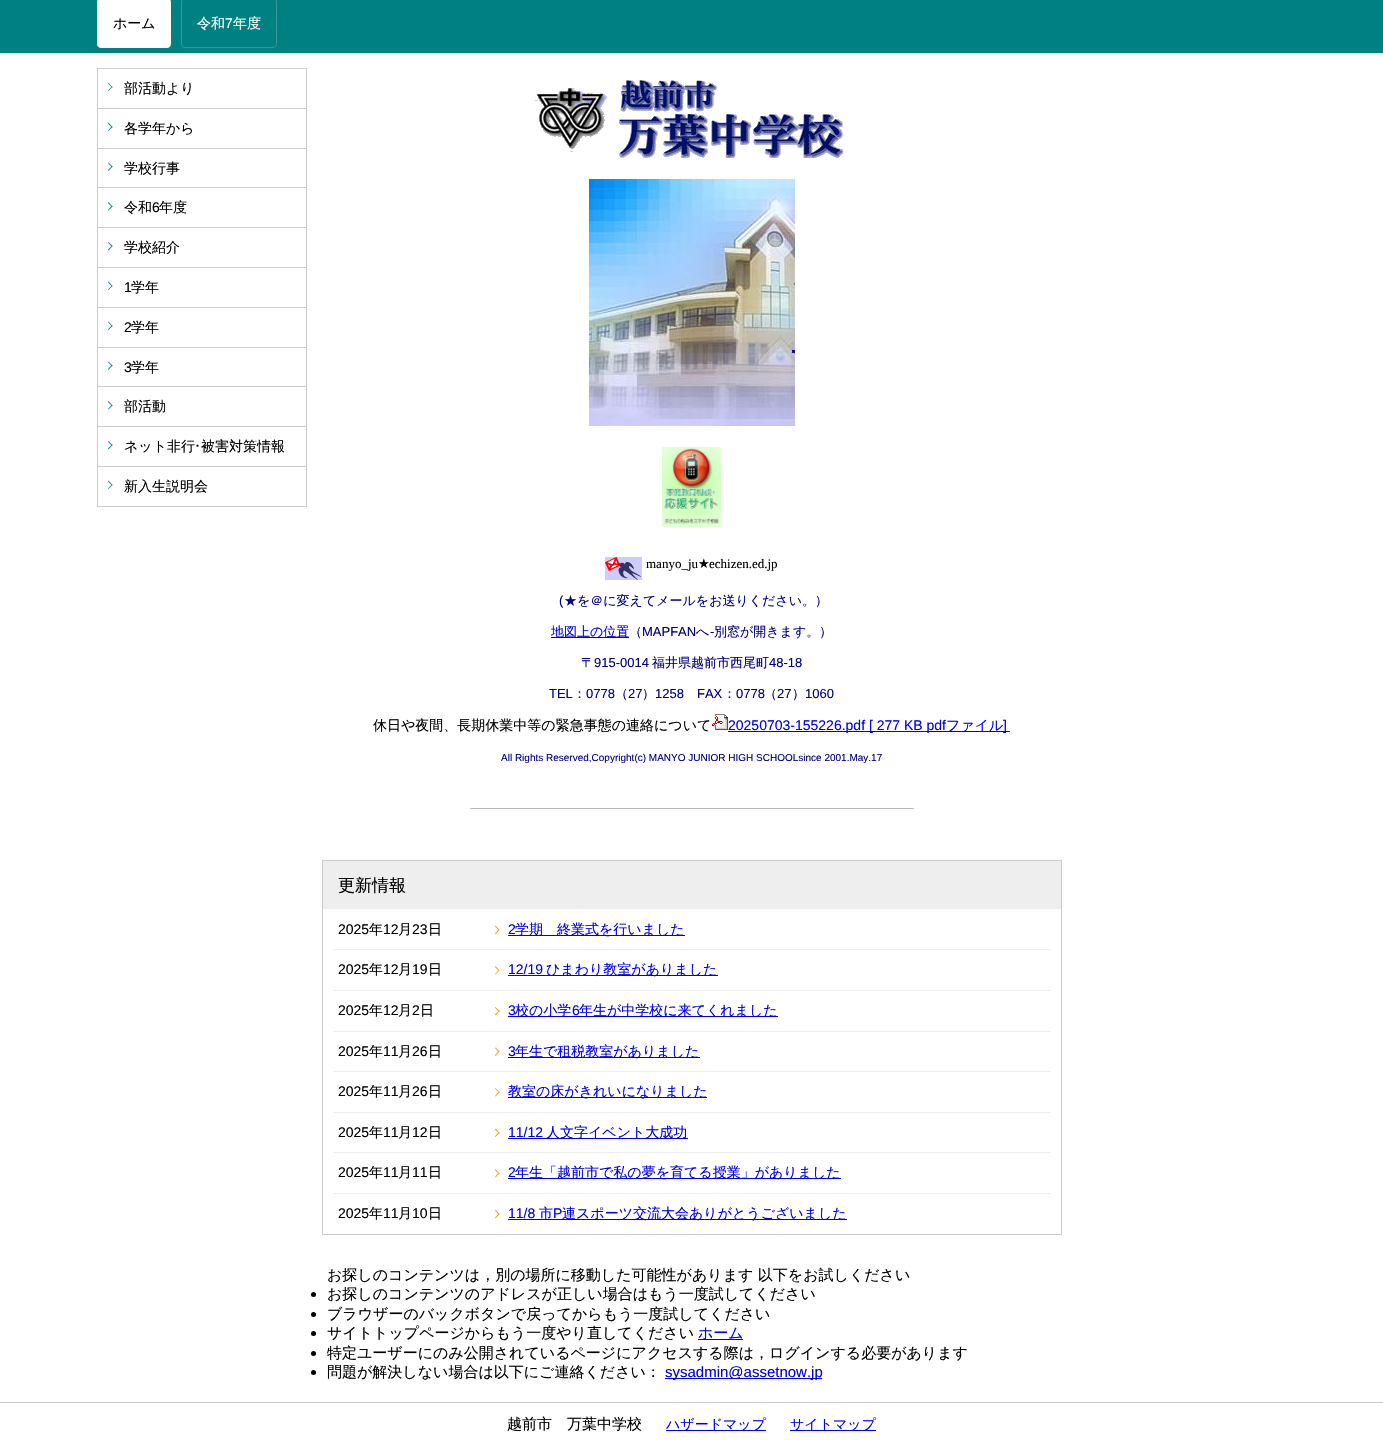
#include "include/core/SkBlurTypes.h"
#include "include/core/SkCanvas.h"
#include "include/core/SkData.h"
#include "include/core/SkFont.h"
#include "include/core/SkFontMgr.h"
#include "include/core/SkImage.h"
#include "include/core/SkMaskFilter.h"
#include "include/core/SkPaint.h"
#include "include/core/SkPathBuilder.h"
#include "include/core/SkTextBlob.h"
#include "include/effects/SkDashPathEffect.h"
#include "include/effects/SkGradientShader.h"
#include "include/utils/SkParsePath.h"

extern sk_sp<SkFontMgr> fontMgr;

void draw(SkCanvas* canvas) {
  SkPaint p;
  p.setAntiAlias(true);
  canvas->clear(SK_ColorWHITE);
  p.setColor(SkColorSetRGB(0, 128, 128));
  canvas->drawRect(SkRect::MakeLTRB(0, 0, 1383, 53), p);
  p.setColor(SK_ColorWHITE);
  canvas->drawRoundRect(SkRect::MakeLTRB(97.5f, -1.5f, 170.5f, 47.5f), 3.5f, 3.5f, p);
  p.setStyle(SkPaint::kStroke_Style);
  p.setStrokeWidth(1);
  canvas->drawRoundRect(SkRect::MakeLTRB(97.5f, -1.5f, 170.5f, 47.5f), 3.5f, 3.5f, p);
  p.setColor(SkColorSetRGB(51, 153, 153));
  canvas->drawRoundRect(SkRect::MakeLTRB(181.5f, -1.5f, 276.5f, 47.5f), 3.5f, 3.5f, p);
  p.setColor(SkColorSetRGB(204, 204, 204));
  canvas->drawRect(SkRect::MakeLTRB(97.5f, 68.5f, 306.5f, 506.5f), p);
  p.setStyle(SkPaint::kFill_Style);
  p.setColor(SkColorSetRGB(0, 128, 128));
  canvas->drawPath(SkPathBuilder().moveTo(108.5f, 83).lineTo(112.5f, 87).lineTo(112, 87.5f).lineTo(108, 83.5f).close().detach(), p);
  canvas->drawPath(SkPathBuilder().moveTo(112, 86.5f).lineTo(112.5f, 87).lineTo(108.5f, 91).lineTo(108, 90.5f).close().detach(), p);
  p.setColor(SkColorSetRGB(204, 204, 204));
  canvas->drawRect(SkRect::MakeLTRB(98, 108, 306, 109), p);
  p.setColor(SkColorSetRGB(0, 128, 128));
  canvas->drawPath(SkPathBuilder().moveTo(108.5f, 122.5f).lineTo(112.5f, 127).lineTo(112, 127.5f).lineTo(108, 123.5f).close().detach(), p);
  canvas->drawPath(SkPathBuilder().moveTo(112, 126).lineTo(112.5f, 127).lineTo(108.5f, 131).lineTo(108, 130.5f).close().detach(), p);
  p.setColor(SkColorSetRGB(204, 204, 204));
  canvas->drawRect(SkRect::MakeLTRB(98, 148, 306, 149), p);
  p.setColor(SkColorSetRGB(0, 128, 128));
  canvas->drawPath(SkPathBuilder().moveTo(108.5f, 162.5f).lineTo(112.5f, 166.5f).lineTo(112, 167.5f).lineTo(108, 163).close().detach(), p);
  canvas->drawPath(SkPathBuilder().moveTo(112, 166).lineTo(112.5f, 166.5f).lineTo(108.5f, 171).lineTo(108, 170).close().detach(), p);
  p.setColor(SkColorSetRGB(204, 204, 204));
  canvas->drawRect(SkRect::MakeLTRB(98, 187, 306, 188), p);
  p.setColor(SkColorSetRGB(0, 128, 128));
  canvas->drawPath(SkPathBuilder().moveTo(108.5f, 202).lineTo(112.5f, 206.5f).lineTo(112, 207).lineTo(108, 203).close().detach(), p);
  canvas->drawPath(SkPathBuilder().moveTo(112, 205.5f).lineTo(112.5f, 206.5f).lineTo(108.5f, 210.5f).lineTo(108, 210).close().detach(), p);
  p.setColor(SkColorSetRGB(204, 204, 204));
  canvas->drawRect(SkRect::MakeLTRB(98, 227, 306, 228), p);
  p.setColor(SkColorSetRGB(0, 128, 128));
  canvas->drawPath(SkPathBuilder().moveTo(108.5f, 242).lineTo(112.5f, 246).lineTo(112, 247).lineTo(108, 242.5f).close().detach(), p);
  canvas->drawPath(SkPathBuilder().moveTo(112, 245.5f).lineTo(112.5f, 246).lineTo(108.5f, 250.5f).lineTo(108, 249.5f).close().detach(), p);
  p.setColor(SkColorSetRGB(204, 204, 204));
  canvas->drawRect(SkRect::MakeLTRB(98, 267, 306, 268), p);
  p.setColor(SkColorSetRGB(0, 128, 128));
  canvas->drawPath(SkPathBuilder().moveTo(108.5f, 281.5f).lineTo(112.5f, 286).lineTo(112, 286.5f).lineTo(108, 282.5f).close().detach(), p);
  canvas->drawPath(SkPathBuilder().moveTo(112, 285.5f).lineTo(112.5f, 286).lineTo(108.5f, 290).lineTo(108, 289.5f).close().detach(), p);
  p.setColor(SkColorSetRGB(204, 204, 204));
  canvas->drawRect(SkRect::MakeLTRB(98, 307, 306, 308), p);
  p.setColor(SkColorSetRGB(0, 128, 128));
  canvas->drawPath(SkPathBuilder().moveTo(108.5f, 321.5f).lineTo(112.5f, 326).lineTo(112, 326.5f).lineTo(108, 322).close().detach(), p);
  canvas->drawPath(SkPathBuilder().moveTo(112, 325).lineTo(112.5f, 326).lineTo(108.5f, 330).lineTo(108, 329.5f).close().detach(), p);
  p.setColor(SkColorSetRGB(204, 204, 204));
  canvas->drawRect(SkRect::MakeLTRB(98, 347, 306, 348), p);
  p.setColor(SkColorSetRGB(0, 128, 128));
  canvas->drawPath(SkPathBuilder().moveTo(108.5f, 361.5f).lineTo(112.5f, 365.5f).lineTo(112, 366.5f).lineTo(108, 362).close().detach(), p);
  canvas->drawPath(SkPathBuilder().moveTo(112, 365).lineTo(112.5f, 365.5f).lineTo(108.5f, 370).lineTo(108, 369).close().detach(), p);
  p.setColor(SkColorSetRGB(204, 204, 204));
  canvas->drawRect(SkRect::MakeLTRB(98, 386, 306, 387), p);
  p.setColor(SkColorSetRGB(0, 128, 128));
  canvas->drawPath(SkPathBuilder().moveTo(108.5f, 401).lineTo(112.5f, 405.5f).lineTo(112, 406).lineTo(108, 402).close().detach(), p);
  canvas->drawPath(SkPathBuilder().moveTo(112, 404.5f).lineTo(112.5f, 405.5f).lineTo(108.5f, 409.5f).lineTo(108, 409).close().detach(), p);
  p.setColor(SkColorSetRGB(204, 204, 204));
  canvas->drawRect(SkRect::MakeLTRB(98, 426, 306, 427), p);
  p.setColor(SkColorSetRGB(0, 128, 128));
  canvas->drawPath(SkPathBuilder().moveTo(108.5f, 441).lineTo(112.5f, 445).lineTo(112, 446).lineTo(108, 441.5f).close().detach(), p);
  canvas->drawPath(SkPathBuilder().moveTo(112, 444.5f).lineTo(112.5f, 445).lineTo(108.5f, 449.5f).lineTo(108, 448.5f).close().detach(), p);
  p.setColor(SkColorSetRGB(204, 204, 204));
  canvas->drawRect(SkRect::MakeLTRB(98, 466, 306, 467), p);
  p.setColor(SkColorSetRGB(0, 128, 128));
  canvas->drawPath(SkPathBuilder().moveTo(108.5f, 480.5f).lineTo(112.5f, 485).lineTo(112, 485.5f).lineTo(108, 481.5f).close().detach(), p);
  canvas->drawPath(SkPathBuilder().moveTo(112, 484.5f).lineTo(112.5f, 485).lineTo(108.5f, 489).lineTo(108, 488.5f).close().detach(), p);
  canvas->drawImageRect(SkImages::DeferredFromEncodedData(SkData::MakeFromFileName("images/1.png")), SkRect::MakeLTRB(535, 80, 844, 158), SkSamplingOptions());
  canvas->drawImageRect(SkImages::DeferredFromEncodedData(SkData::MakeFromFileName("images/2.png")), SkRect::MakeLTRB(589, 179, 795, 426), SkSamplingOptions());
  canvas->drawImageRect(SkImages::DeferredFromEncodedData(SkData::MakeFromFileName("images/3.png")), SkRect::MakeLTRB(662, 447, 721, 527), SkSamplingOptions());
  canvas->drawImageRect(SkImages::DeferredFromEncodedData(SkData::MakeFromFileName("images/4.png")), SkRect::MakeLTRB(605, 557, 642, 580), SkSamplingOptions());
  p.setColor(SkColorSetRGB(0, 0, 238));
  canvas->drawRect(SkRect::MakeLTRB(551, 637, 629, 638), p);
  canvas->drawImageRect(SkImages::DeferredFromEncodedData(SkData::MakeFromFileName("images/5.png")), SkRect::MakeLTRB(712, 714, 728, 730), SkSamplingOptions());
  canvas->drawRect(SkRect::MakeLTRB(728, 731, 1010, 732), p);
  p.setColor(SkColorSetRGB(187, 187, 187));
  canvas->drawRect(SkRect::MakeLTRB(470, 808, 914, 809), p);
  p.setStyle(SkPaint::kStroke_Style);
  p.setColor(SkColorSetRGB(204, 204, 204));
  canvas->drawRect(SkRect::MakeLTRB(322.5f, 860.5f, 1061.5f, 1234.5f), p);
  p.setStyle(SkPaint::kFill_Style);
  p.setColor(SkColorSetRGB(238, 238, 238));
  canvas->drawRect(SkRect::MakeLTRB(323, 861, 1061, 909), p);
  canvas->drawRect(SkRect::MakeLTRB(333, 949, 1051, 950), p);
  p.setColor(SkColorSetRGB(238, 153, 0));
  canvas->drawPath(SkPathBuilder().moveTo(495.5f, 925.5f).lineTo(499.5f, 930).lineTo(499, 930.5f).lineTo(495, 926.5f).close().detach(), p);
  canvas->drawPath(SkPathBuilder().moveTo(499, 929).lineTo(499.5f, 930).lineTo(495.5f, 934).lineTo(495, 933.5f).close().detach(), p);
  p.setColor(SkColorSetRGB(0, 0, 238));
  canvas->drawRect(SkRect::MakeLTRB(508, 935, 685, 936), p);
  p.setColor(SkColorSetRGB(238, 238, 238));
  canvas->drawRect(SkRect::MakeLTRB(333, 990, 1051, 991), p);
  p.setColor(SkColorSetRGB(238, 153, 0));
  canvas->drawPath(SkPathBuilder().moveTo(495.5f, 966).lineTo(499.5f, 970.5f).lineTo(499, 971).lineTo(495, 967).close().detach(), p);
  canvas->drawPath(SkPathBuilder().moveTo(499, 970).lineTo(499.5f, 970.5f).lineTo(495.5f, 974.5f).lineTo(495, 974).close().detach(), p);
  p.setColor(SkColorSetRGB(0, 0, 238));
  canvas->drawRect(SkRect::MakeLTRB(508, 975, 718, 976), p);
  p.setColor(SkColorSetRGB(238, 238, 238));
  canvas->drawRect(SkRect::MakeLTRB(333, 1031, 1051, 1032), p);
  p.setColor(SkColorSetRGB(238, 153, 0));
  canvas->drawPath(SkPathBuilder().moveTo(495.5f, 1007).lineTo(499.5f, 1011).lineTo(499, 1012).lineTo(495, 1007.5f).close().detach(), p);
  canvas->drawPath(SkPathBuilder().moveTo(499, 1010.5f).lineTo(499.5f, 1011).lineTo(495.5f, 1015.5f).lineTo(495, 1014.5f).close().detach(), p);
  p.setColor(SkColorSetRGB(0, 0, 238));
  canvas->drawRect(SkRect::MakeLTRB(508, 1016, 778, 1017), p);
  p.setColor(SkColorSetRGB(238, 238, 238));
  canvas->drawRect(SkRect::MakeLTRB(333, 1071, 1051, 1072), p);
  p.setColor(SkColorSetRGB(238, 153, 0));
  canvas->drawPath(SkPathBuilder().moveTo(495.5f, 1047.5f).lineTo(499.5f, 1051.5f).lineTo(499, 1052.5f).lineTo(495, 1048).close().detach(), p);
  canvas->drawPath(SkPathBuilder().moveTo(499, 1051).lineTo(499.5f, 1051.5f).lineTo(495.5f, 1056).lineTo(495, 1055).close().detach(), p);
  p.setColor(SkColorSetRGB(0, 0, 238));
  canvas->drawRect(SkRect::MakeLTRB(508, 1057, 700, 1058), p);
  p.setColor(SkColorSetRGB(238, 238, 238));
  canvas->drawRect(SkRect::MakeLTRB(333, 1112, 1051, 1113), p);
  p.setColor(SkColorSetRGB(238, 153, 0));
  canvas->drawPath(SkPathBuilder().moveTo(495.5f, 1088).lineTo(499.5f, 1092.5f).lineTo(499, 1093).lineTo(495, 1088.5f).close().detach(), p);
  canvas->drawPath(SkPathBuilder().moveTo(499, 1091.5f).lineTo(499.5f, 1092.5f).lineTo(495.5f, 1096.5f).lineTo(495, 1096).close().detach(), p);
  p.setColor(SkColorSetRGB(0, 0, 238));
  canvas->drawRect(SkRect::MakeLTRB(508, 1097, 707, 1098), p);
  p.setColor(SkColorSetRGB(238, 238, 238));
  canvas->drawRect(SkRect::MakeLTRB(333, 1152, 1051, 1153), p);
  p.setColor(SkColorSetRGB(238, 153, 0));
  canvas->drawPath(SkPathBuilder().moveTo(495.5f, 1128.5f).lineTo(499.5f, 1133).lineTo(499, 1133.5f).lineTo(495, 1129.5f).close().detach(), p);
  canvas->drawPath(SkPathBuilder().moveTo(499, 1132).lineTo(499.5f, 1133).lineTo(495.5f, 1137).lineTo(495, 1136.5f).close().detach(), p);
  p.setColor(SkColorSetRGB(0, 0, 238));
  canvas->drawRect(SkRect::MakeLTRB(508, 1138, 688, 1139), p);
  p.setColor(SkColorSetRGB(238, 238, 238));
  canvas->drawRect(SkRect::MakeLTRB(333, 1193, 1051, 1194), p);
  p.setColor(SkColorSetRGB(238, 153, 0));
  canvas->drawPath(SkPathBuilder().moveTo(495.5f, 1169).lineTo(499.5f, 1173.5f).lineTo(499, 1174).lineTo(495, 1170).close().detach(), p);
  canvas->drawPath(SkPathBuilder().moveTo(499, 1172.5f).lineTo(499.5f, 1173.5f).lineTo(495.5f, 1177.5f).lineTo(495, 1177).close().detach(), p);
  p.setColor(SkColorSetRGB(0, 0, 238));
  canvas->drawRect(SkRect::MakeLTRB(508, 1178, 841, 1179), p);
  p.setColor(SkColorSetRGB(238, 153, 0));
  canvas->drawPath(SkPathBuilder().moveTo(495.5f, 1210).lineTo(499.5f, 1214).lineTo(499, 1215).lineTo(495, 1210.5f).close().detach(), p);
  canvas->drawPath(SkPathBuilder().moveTo(499, 1213.5f).lineTo(499.5f, 1214).lineTo(495.5f, 1218.5f).lineTo(495, 1217.5f).close().detach(), p);
  p.setColor(SkColorSetRGB(0, 0, 238));
  canvas->drawRect(SkRect::MakeLTRB(508, 1219, 847, 1220), p);
  p.setColor(SK_ColorBLACK);
  canvas->drawCircle(313.5f, 1294.5f, 2.5f, p);
  canvas->drawCircle(313.5f, 1314.5f, 2.5f, p);
  canvas->drawCircle(313.5f, 1333.5f, 2.5f, p);
  p.setColor(SkColorSetRGB(0, 0, 238));
  canvas->drawRect(SkRect::MakeLTRB(698, 1339, 743, 1340), p);
  p.setColor(SK_ColorBLACK);
  canvas->drawCircle(313.5f, 1353.5f, 2.5f, p);
  canvas->drawCircle(313.5f, 1372.5f, 2.5f, p);
  p.setColor(SkColorSetRGB(0, 0, 238));
  canvas->drawRect(SkRect::MakeLTRB(665, 1378, 822, 1379), p);
  p.setColor(SkColorSetRGB(204, 204, 204));
  canvas->drawRect(SkRect::MakeLTRB(0, 1402, 1383, 1403), p);
  p.setColor(SkColorSetRGB(0, 0, 238));
  canvas->drawRect(SkRect::MakeLTRB(666, 1430, 766, 1431), p);
  canvas->drawRect(SkRect::MakeLTRB(790, 1430, 876, 1431), p);
  SkFont font1(fontMgr->matchFamilyStyle("WenQuanYi Zen Hei", SkFontStyle(500, SkFontStyle::kNormal_Width, SkFontStyle::kUpright_Slant)), 14);
  font1.setSubpixel(true);
  p.setColor(SK_ColorBLACK);
  canvas->drawString("ホーム", 113, 28, font1, p);
  p.setColor(SK_ColorWHITE);
  canvas->drawString("令和", 197, 28, font1, p);
  SkFont font2(fontMgr->matchFamilyStyle("Liberation Sans", SkFontStyle::Normal()), 14);
  font2.setSubpixel(true);
  canvas->drawString("7", 225, 28, font2, p);
  canvas->drawString("年度", 233, 28, font1, p);
  p.setColor(SK_ColorBLACK);
  canvas->drawString("部活動より", 124, 93, font1, p);
  canvas->drawString("各学年から", 124, 133, font1, p);
  canvas->drawString("学校行事", 124, 173, font1, p);
  canvas->drawString("令和", 124, 212, font1, p);
  canvas->drawString("6", 152, 212, font2, p);
  canvas->drawString("年度", 159, 212, font1, p);
  canvas->drawString("学校紹介", 124, 252, font1, p);
  canvas->drawString("1", 124, 292, font2, p);
  canvas->drawString("学年", 131, 292, font1, p);
  canvas->drawString("2", 124, 332, font2, p);
  canvas->drawString("学年", 131, 332, font1, p);
  canvas->drawString("3", 124, 372, font2, p);
  canvas->drawString("学年", 131, 372, font1, p);
  canvas->drawString("部活動", 124, 411, font1, p);
  canvas->drawString("ネット非行", 124, 451, font1, p);
  SkFont font3(fontMgr->matchFamilyStyle("IPAPGothic", SkFontStyle::Normal()), 14);
  font3.setSubpixel(true);
  canvas->drawString("･", 194, 451, font3, p);
  canvas->drawString("被害対策情報", 201, 451, font1, p);
  canvas->drawString("新入生説明会", 124, 491, font1, p);
  SkFont font4(fontMgr->matchFamilyStyle("Liberation Serif", SkFontStyle::Normal()), 13);
  font4.setSubpixel(true);
  canvas->drawString("manyo_ju", 646, 568, font4, p);
  SkFont font5(fontMgr->matchFamilyStyle("DejaVu Sans", SkFontStyle::Normal()), 13);
  font5.setSubpixel(true);
  canvas->drawString("★", 698, 568, font5, p);
  canvas->drawString("echizen.ed.jp", 709, 568, font4, p);
  SkFont font6(fontMgr->matchFamilyStyle("Liberation Sans", SkFontStyle::Normal()), 13);
  font6.setSubpixel(true);
  p.setColor(SkColorSetRGB(0, 0, 128));
  canvas->drawString("(", 559, 605, font6, p);
  SkFont font7(fontMgr->matchFamilyStyle("WenQuanYi Zen Hei", SkFontStyle(500, SkFontStyle::kNormal_Width, SkFontStyle::kUpright_Slant)), 13);
  font7.setSubpixel(true);
  canvas->drawString("★を＠に変えてメールをお送りください。）", 564, 605, font7, p);
  p.setColor(SkColorSetRGB(0, 0, 238));
  canvas->drawString("地図上の位置", 551, 636, font7, p);
  p.setColor(SkColorSetRGB(0, 0, 128));
  canvas->drawString("（", 629, 636, font7, p);
  canvas->drawString("MAPFAN", 642, 636, font6, p);
  canvas->drawString("へ", 696, 636, font7, p);
  canvas->drawString("-", 710, 636, font6, p);
  canvas->drawString("別窓が開きます。）", 714, 636, font7, p);
  canvas->drawString("〒", 581, 667, font7, p);
  canvas->drawString("915-0014", 594, 667, font6, p);
  canvas->drawString("福井県越前市西尾町", 652, 667, font7, p);
  canvas->drawString("48-18", 769, 667, font6, p);
  canvas->drawString("TEL", 549, 698, font6, p);
  canvas->drawString("：", 573, 698, font7, p);
  canvas->drawString("0778", 586, 698, font6, p);
  canvas->drawString("（", 615, 698, font7, p);
  canvas->drawString("27", 628, 698, font6, p);
  canvas->drawString("）", 642, 698, font7, p);
  canvas->drawString("1258", 655, 698, font6, p);
  canvas->drawString("FAX", 697, 698, font6, p);
  canvas->drawString("：", 723, 698, font7, p);
  canvas->drawString("0778", 736, 698, font6, p);
  canvas->drawString("（", 764, 698, font7, p);
  canvas->drawString("27", 777, 698, font6, p);
  canvas->drawString("）", 792, 698, font7, p);
  canvas->drawString("1060", 805, 698, font6, p);
  p.setColor(SK_ColorBLACK);
  canvas->drawString("休日や夜間、長期休業中等の緊急事態の連絡について", 373, 730, font1, p);
  p.setColor(SkColorSetRGB(0, 0, 238));
  canvas->drawString("20250703-155226.pdf [ 277 KB pdf", 728, 730, font2, p);
  canvas->drawString("ファイル", 946, 730, font1, p);
  canvas->drawString("]", 1003, 730, font2, p);
  SkFont font8(fontMgr->matchFamilyStyle("Liberation Sans", SkFontStyle::Normal()), 10);
  font8.setSubpixel(true);
  p.setColor(SkColorSetRGB(0, 0, 128));
  canvas->drawString("All Rights Reserved,Copyright(c) MANYO JUNIOR HIGH SCHOOLsince 2001.May.17", 501, 761, font8, p);
  SkFont font9(fontMgr->matchFamilyStyle("WenQuanYi Zen Hei", SkFontStyle(500, SkFontStyle::kNormal_Width, SkFontStyle::kUpright_Slant)), 17);
  font9.setSubpixel(true);
  p.setColor(SK_ColorBLACK);
  canvas->drawString("更新情報", 338, 891, font9, p);
  canvas->drawString("2025", 338, 934, font2, p);
  canvas->drawString("年", 369, 934, font1, p);
  canvas->drawString("12", 383, 934, font2, p);
  canvas->drawString("月", 398, 934, font1, p);
  canvas->drawString("23", 412, 934, font2, p);
  canvas->drawString("日", 428, 934, font1, p);
  p.setColor(SkColorSetRGB(0, 0, 238));
  canvas->drawString("2", 508, 934, font2, p);
  canvas->drawString("学期　終業式を行いました", 515, 934, font1, p);
  p.setColor(SK_ColorBLACK);
  canvas->drawString("2025", 338, 974, font2, p);
  canvas->drawString("年", 369, 974, font1, p);
  canvas->drawString("12", 383, 974, font2, p);
  canvas->drawString("月", 398, 974, font1, p);
  canvas->drawString("19", 412, 974, font2, p);
  canvas->drawString("日", 428, 974, font1, p);
  p.setColor(SkColorSetRGB(0, 0, 238));
  canvas->drawString("12/19", 508, 974, font2, p);
  canvas->drawString("ひまわり教室がありました", 546, 974, font1, p);
  p.setColor(SK_ColorBLACK);
  canvas->drawString("2025", 338, 1015, font2, p);
  canvas->drawString("年", 369, 1015, font1, p);
  canvas->drawString("12", 383, 1015, font2, p);
  canvas->drawString("月", 398, 1015, font1, p);
  canvas->drawString("2", 412, 1015, font2, p);
  canvas->drawString("日", 420, 1015, font1, p);
  p.setColor(SkColorSetRGB(0, 0, 238));
  canvas->drawString("3", 508, 1015, font2, p);
  canvas->drawString("校の小学", 515, 1015, font1, p);
  canvas->drawString("6", 572, 1015, font2, p);
  canvas->drawString("年生が中学校に来てくれました", 579, 1015, font1, p);
  p.setColor(SK_ColorBLACK);
  canvas->drawString("2025", 338, 1056, font2, p);
  canvas->drawString("年", 369, 1056, font1, p);
  canvas->drawString("11", 383, 1056, font2, p);
  canvas->drawString("月", 398, 1056, font1, p);
  canvas->drawString("26", 412, 1056, font2, p);
  canvas->drawString("日", 428, 1056, font1, p);
  p.setColor(SkColorSetRGB(0, 0, 238));
  canvas->drawString("3", 508, 1056, font2, p);
  canvas->drawString("年生で租税教室がありました", 515, 1056, font1, p);
  p.setColor(SK_ColorBLACK);
  canvas->drawString("2025", 338, 1096, font2, p);
  canvas->drawString("年", 369, 1096, font1, p);
  canvas->drawString("11", 383, 1096, font2, p);
  canvas->drawString("月", 398, 1096, font1, p);
  canvas->drawString("26", 412, 1096, font2, p);
  canvas->drawString("日", 428, 1096, font1, p);
  p.setColor(SkColorSetRGB(0, 0, 238));
  canvas->drawString("教室の床がきれいになりました", 508, 1096, font1, p);
  p.setColor(SK_ColorBLACK);
  canvas->drawString("2025", 338, 1137, font2, p);
  canvas->drawString("年", 369, 1137, font1, p);
  canvas->drawString("11", 383, 1137, font2, p);
  canvas->drawString("月", 398, 1137, font1, p);
  canvas->drawString("12", 412, 1137, font2, p);
  canvas->drawString("日", 428, 1137, font1, p);
  p.setColor(SkColorSetRGB(0, 0, 238));
  canvas->drawString("11/12", 508, 1137, font2, p);
  canvas->drawString("人文字イベント大成功", 546, 1137, font1, p);
  p.setColor(SK_ColorBLACK);
  canvas->drawString("2025", 338, 1177, font2, p);
  canvas->drawString("年", 369, 1177, font1, p);
  canvas->drawString("11", 383, 1177, font2, p);
  canvas->drawString("月", 398, 1177, font1, p);
  canvas->drawString("11", 412, 1177, font2, p);
  canvas->drawString("日", 428, 1177, font1, p);
  p.setColor(SkColorSetRGB(0, 0, 238));
  canvas->drawString("2", 508, 1177, font2, p);
  canvas->drawString("年生「越前市で私の夢を育てる授業」がありました", 515, 1177, font1, p);
  p.setColor(SK_ColorBLACK);
  canvas->drawString("2025", 338, 1218, font2, p);
  canvas->drawString("年", 369, 1218, font1, p);
  canvas->drawString("11", 383, 1218, font2, p);
  canvas->drawString("月", 398, 1218, font1, p);
  canvas->drawString("10", 412, 1218, font2, p);
  canvas->drawString("日", 428, 1218, font1, p);
  p.setColor(SkColorSetRGB(0, 0, 238));
  canvas->drawString("11/8", 508, 1218, font2, p);
  canvas->drawString("市", 539, 1218, font1, p);
  canvas->drawString("P", 553, 1218, font2, p);
  canvas->drawString("連スポーツ交流大会ありがとうございました", 562, 1218, font1, p);
  SkFont font10(fontMgr->matchFamilyStyle("WenQuanYi Zen Hei", SkFontStyle(500, SkFontStyle::kNormal_Width, SkFontStyle::kUpright_Slant)), 15);
  font10.setSubpixel(true);
  p.setColor(SK_ColorBLACK);
  canvas->drawString("お探しのコンテンツは，別の場所に移動した可能性があります 以下をお試しください", 327, 1280, font10, p);
  canvas->drawString("お探しのコンテンツのアドレスが正しい場合はもう一度試してください", 327, 1299, font10, p);
  canvas->drawString("ブラウザーのバックボタンで戻ってからもう一度試してください", 327, 1319, font10, p);
  canvas->drawString("サイトトップページからもう一度やり直してください", 327, 1338, font10, p);
  p.setColor(SkColorSetRGB(0, 0, 238));
  canvas->drawString("ホーム", 698, 1338, font10, p);
  p.setColor(SK_ColorBLACK);
  canvas->drawString("特定ユーザーにのみ公開されているページにアクセスする際は，ログインする必要があります", 327, 1358, font10, p);
  canvas->drawString("問題が解決しない場合は以下にご連絡ください：", 327, 1377, font10, p);
  SkFont font11(fontMgr->matchFamilyStyle("Liberation Sans", SkFontStyle::Normal()), 15);
  font11.setSubpixel(true);
  p.setColor(SkColorSetRGB(0, 0, 238));
  canvas->drawString("sysadmin@assetnow.jp", 665, 1377, font11, p);
  p.setColor(SK_ColorBLACK);
  canvas->drawString("越前市　万葉中学校", 507, 1429, font10, p);
  p.setColor(SkColorSetRGB(0, 0, 238));
  canvas->drawString("ハザードマップ", 666, 1429, font1, p);
  canvas->drawString("サイトマップ", 790, 1429, font1, p);
}
